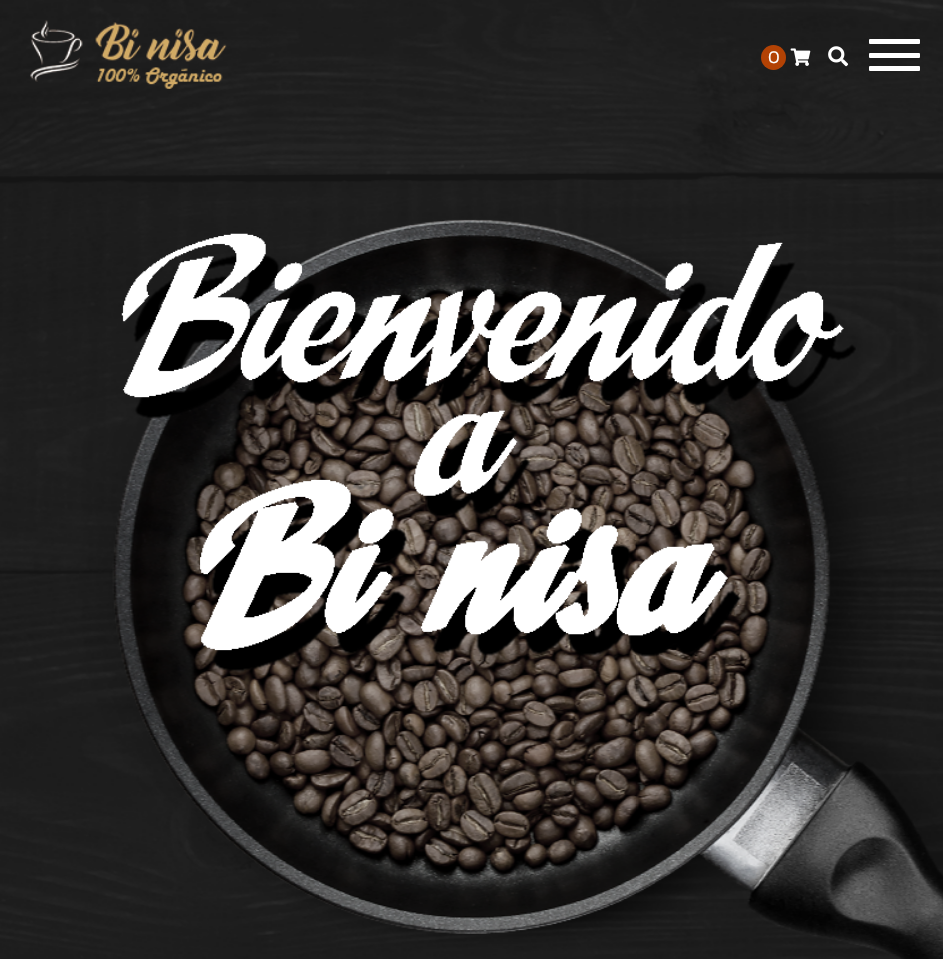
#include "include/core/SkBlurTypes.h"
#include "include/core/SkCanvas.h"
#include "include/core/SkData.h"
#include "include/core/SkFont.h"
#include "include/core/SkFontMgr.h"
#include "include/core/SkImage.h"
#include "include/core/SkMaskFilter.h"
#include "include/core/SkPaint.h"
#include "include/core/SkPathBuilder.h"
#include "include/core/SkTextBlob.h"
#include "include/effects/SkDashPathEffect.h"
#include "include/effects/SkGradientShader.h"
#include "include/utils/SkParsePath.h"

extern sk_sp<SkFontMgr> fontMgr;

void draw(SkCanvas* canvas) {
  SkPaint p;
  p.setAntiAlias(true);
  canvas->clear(SK_ColorWHITE);
  canvas->drawImageRect(SkImages::DeferredFromEncodedData(SkData::MakeFromFileName("images/1.png")), SkRect::MakeLTRB(0, 0, 943, 959), SkSamplingOptions());
  canvas->drawImageRect(SkImages::DeferredFromEncodedData(SkData::MakeFromFileName("images/2.png")), SkRect::MakeLTRB(121, 233, 856, 672), SkSamplingOptions());
  canvas->drawImageRect(SkImages::DeferredFromEncodedData(SkData::MakeFromFileName("images/3.png")), SkRect::MakeLTRB(30, 20, 227, 89), SkSamplingOptions());
  p.setColor(SK_ColorWHITE);
  canvas->drawRoundRect(SkRect::MakeLTRB(869, 39, 920, 44), 1, 1, p);
  canvas->drawRoundRect(SkRect::MakeLTRB(869, 53, 920, 58), 1, 1, p);
  canvas->drawRoundRect(SkRect::MakeLTRB(869, 66, 920, 71), 1, 1, p);
  p.setColor(SkColorSetRGB(179, 66, 4));
  canvas->drawCircle(773.5f, 57.5f, 12.5f, p);
  canvas->drawImageRect(SkImages::DeferredFromEncodedData(SkData::MakeFromFileName("images/4.png")), SkRect::MakeLTRB(790, 48, 811, 66), SkSamplingOptions());
  canvas->drawImageRect(SkImages::DeferredFromEncodedData(SkData::MakeFromFileName("images/5.png")), SkRect::MakeLTRB(828, 46, 849, 67), SkSamplingOptions());
  SkFont font1(fontMgr->matchFamilyStyle("Kanit", SkFontStyle(300, SkFontStyle::kNormal_Width, SkFontStyle::kUpright_Slant)), 18);
  font1.setSubpixel(true);
  p.setColor(SK_ColorWHITE);
  canvas->drawString("0", 768, 63, font1, p);
}
